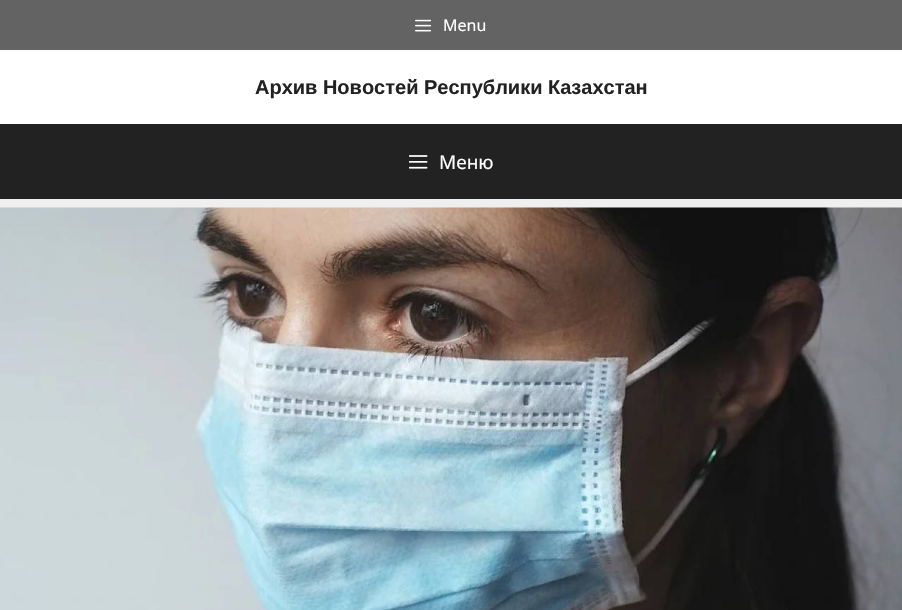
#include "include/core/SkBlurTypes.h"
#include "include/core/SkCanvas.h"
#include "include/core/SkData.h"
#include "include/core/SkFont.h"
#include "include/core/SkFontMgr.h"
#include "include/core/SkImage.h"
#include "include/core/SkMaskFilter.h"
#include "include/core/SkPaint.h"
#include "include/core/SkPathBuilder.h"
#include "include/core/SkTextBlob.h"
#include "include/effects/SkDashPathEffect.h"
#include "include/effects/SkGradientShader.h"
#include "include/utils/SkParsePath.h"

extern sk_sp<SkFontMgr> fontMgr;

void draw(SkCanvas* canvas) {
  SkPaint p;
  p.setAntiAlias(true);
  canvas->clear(SkColorSetRGB(239, 239, 239));
  p.setColor(SkColorSetRGB(99, 99, 99));
  canvas->drawRect(SkRect::MakeLTRB(0, 0, 902, 50), p);
  canvas->drawImageRect(SkImages::DeferredFromEncodedData(SkData::MakeFromFileName("images/1.png")), SkRect::MakeLTRB(415, 19, 431, 32), SkSamplingOptions());
  p.setColor(SK_ColorWHITE);
  canvas->drawRect(SkRect::MakeLTRB(0, 50, 902, 124), p);
  p.setColor(SkColorSetRGB(34, 34, 34));
  canvas->drawRect(SkRect::MakeLTRB(0, 124, 902, 199), p);
  canvas->drawImageRect(SkImages::DeferredFromEncodedData(SkData::MakeFromFileName("images/2.png")), SkRect::MakeLTRB(409, 155, 428, 169), SkSamplingOptions());
  canvas->drawImageRect(SkImages::DeferredFromEncodedData(SkData::MakeFromFileName("images/3.png")), SkRect::MakeLTRB(0, 207, 902, 610), SkSamplingOptions());
  SkFont font1(fontMgr->matchFamilyStyle("Noto Sans", SkFontStyle::Normal()), 16);
  font1.setSubpixel(true);
  p.setColor(SK_ColorWHITE);
  canvas->drawString("Menu", 443, 31, font1, p);
  SkFont font2(fontMgr->matchFamilyStyle("Liberation Sans", SkFontStyle::Bold()), 20);
  font2.setSubpixel(true);
  p.setColor(SkColorSetRGB(34, 34, 34));
  canvas->drawString("Архив Новостей Республики Казахстан", 255, 94, font2, p);
  SkFont font3(fontMgr->matchFamilyStyle("Noto Sans", SkFontStyle::Normal()), 19);
  font3.setSubpixel(true);
  p.setColor(SK_ColorWHITE);
  canvas->drawString("Меню", 439, 169, font3, p);
}
